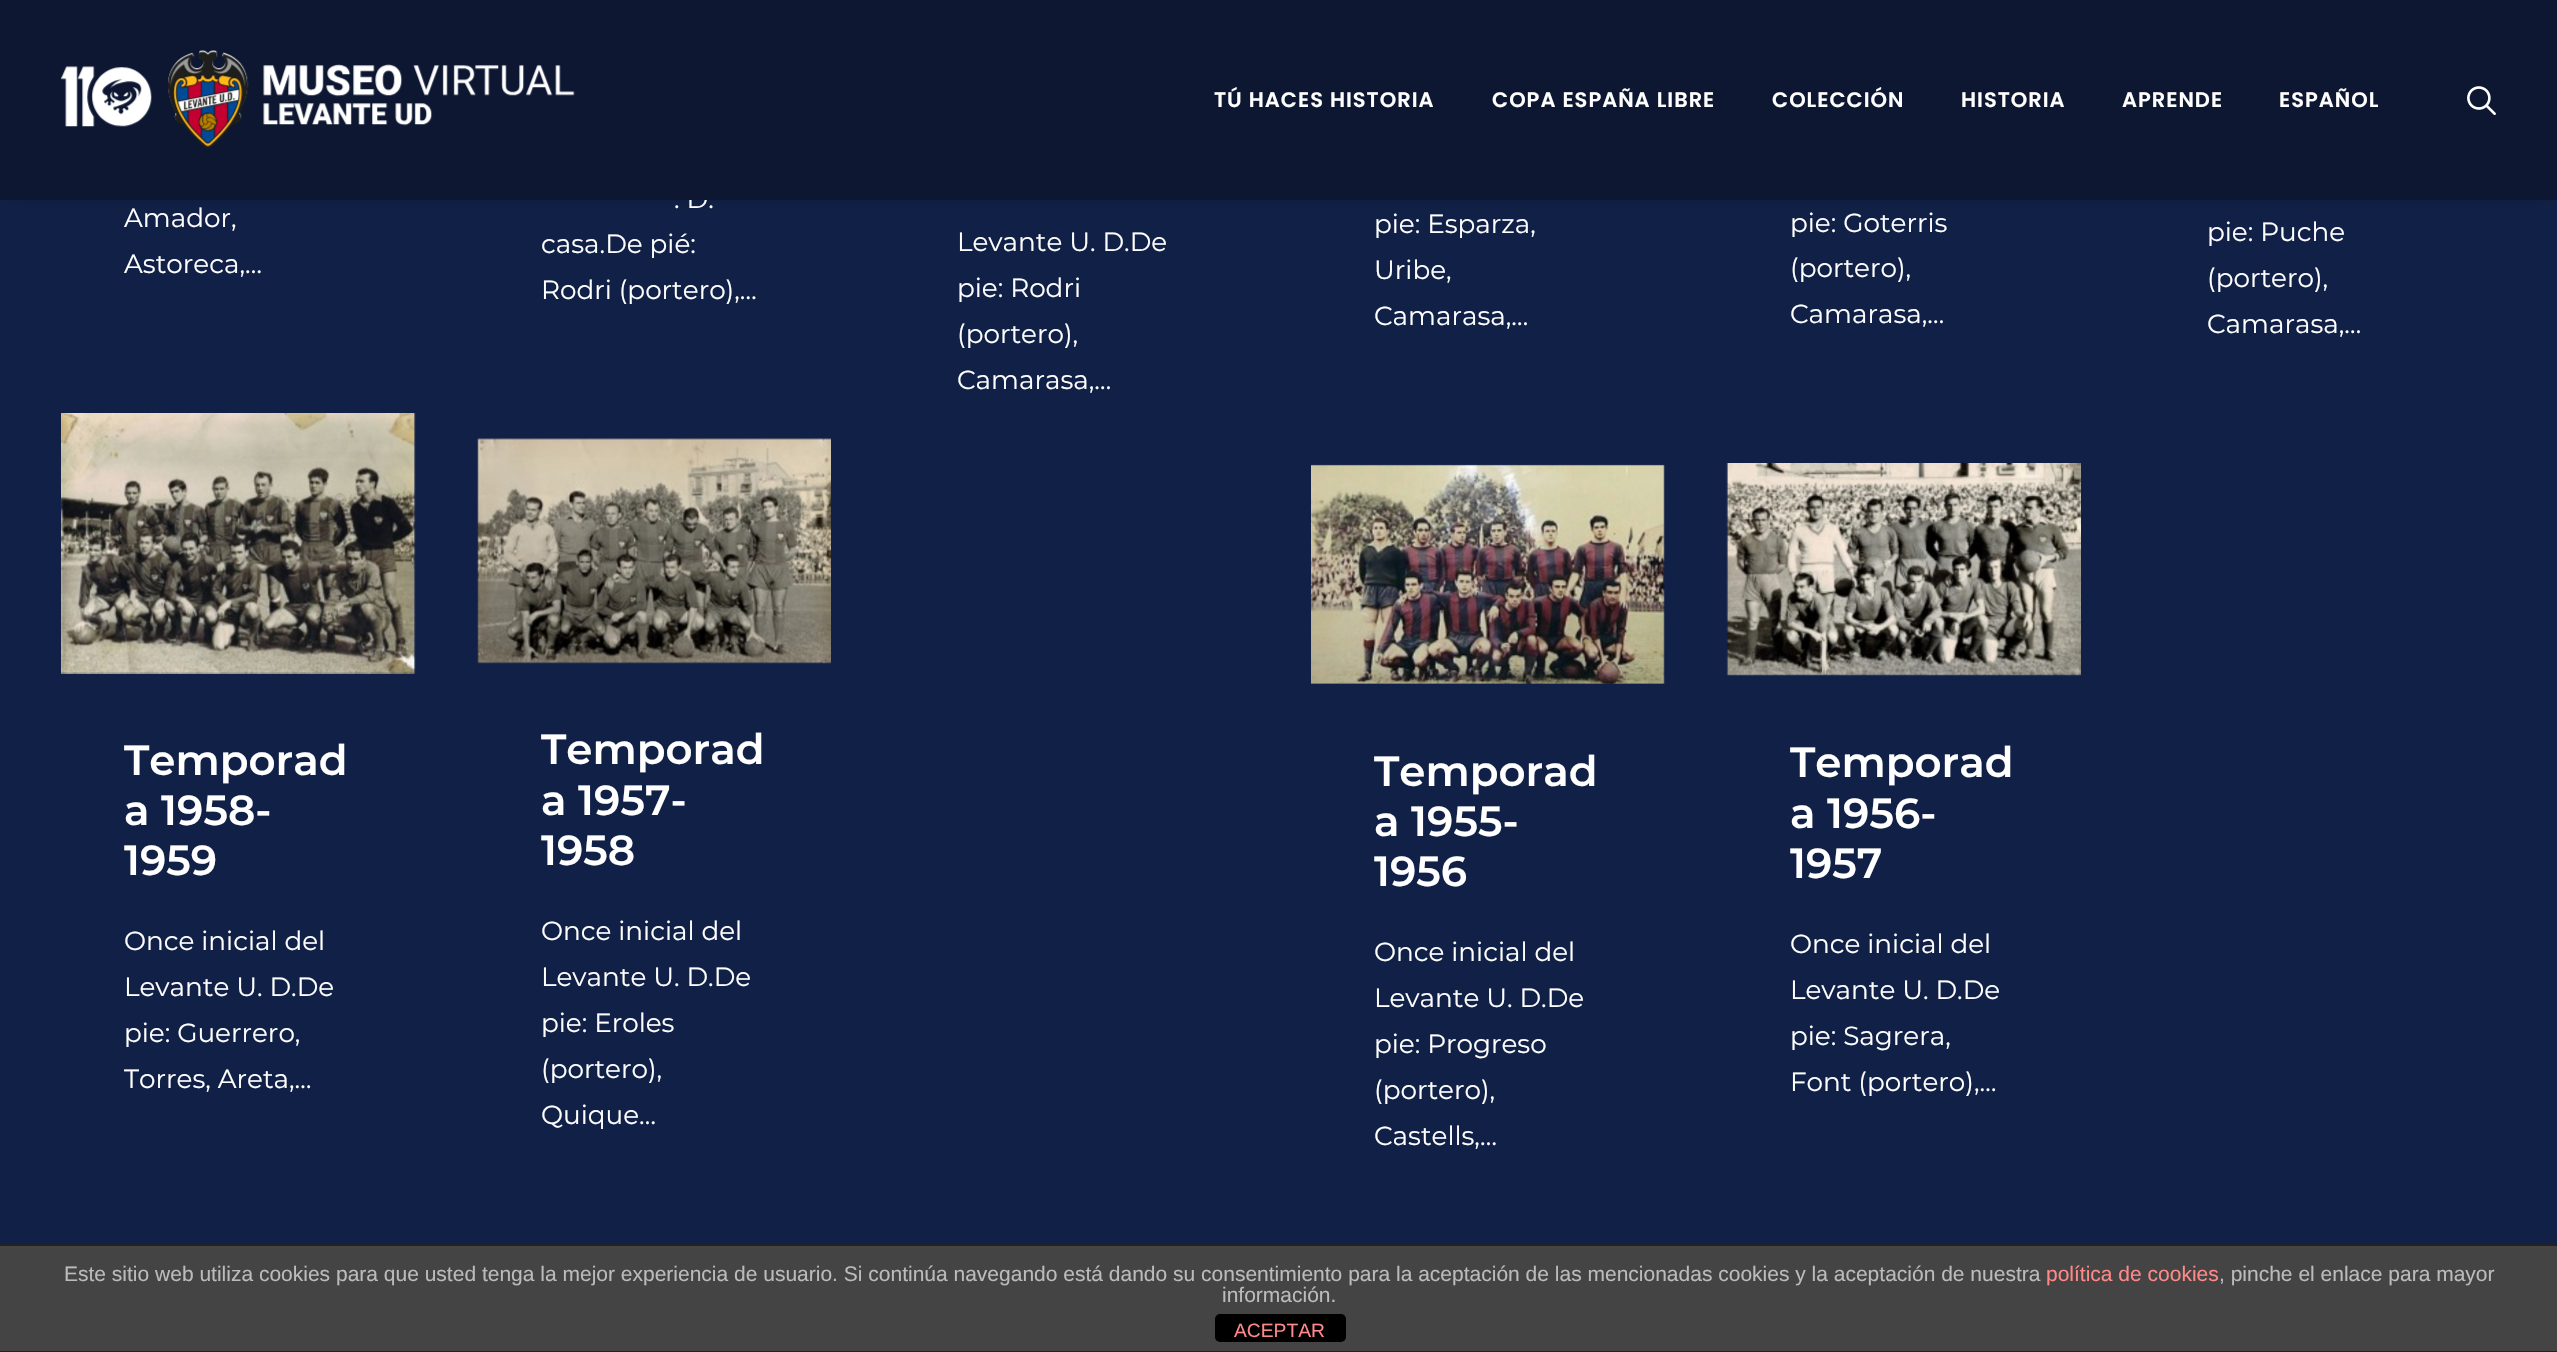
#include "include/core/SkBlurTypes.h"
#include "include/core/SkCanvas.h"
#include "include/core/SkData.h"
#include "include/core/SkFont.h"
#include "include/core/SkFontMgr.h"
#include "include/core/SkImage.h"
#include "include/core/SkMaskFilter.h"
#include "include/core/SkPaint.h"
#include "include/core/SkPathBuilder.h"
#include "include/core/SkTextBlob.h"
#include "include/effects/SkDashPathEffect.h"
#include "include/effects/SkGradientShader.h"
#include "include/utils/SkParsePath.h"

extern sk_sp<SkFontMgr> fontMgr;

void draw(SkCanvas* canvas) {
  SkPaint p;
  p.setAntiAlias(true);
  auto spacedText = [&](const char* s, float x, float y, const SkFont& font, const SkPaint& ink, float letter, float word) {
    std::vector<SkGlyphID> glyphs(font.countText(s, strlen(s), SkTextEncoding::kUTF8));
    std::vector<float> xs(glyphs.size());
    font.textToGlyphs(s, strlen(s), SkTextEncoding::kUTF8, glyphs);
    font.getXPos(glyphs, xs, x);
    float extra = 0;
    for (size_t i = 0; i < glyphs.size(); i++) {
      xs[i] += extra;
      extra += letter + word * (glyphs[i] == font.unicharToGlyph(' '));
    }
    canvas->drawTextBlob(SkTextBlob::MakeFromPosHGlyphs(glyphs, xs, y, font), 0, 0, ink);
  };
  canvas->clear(SkColorSetRGB(17, 32, 70));
  p.setColor(SkColorSetARGB(153, 0, 0, 0));
  p.setMaskFilter(SkMaskFilter::MakeBlur(kNormal_SkBlurStyle, 9));
  canvas->drawRect(SkRect::MakeLTRB(16, 25, 2543, 189), p);
  p.setMaskFilter(nullptr);
  canvas->drawImageRect(SkImages::DeferredFromEncodedData(SkData::MakeFromFileName("images/3.png")), SkRect::MakeLTRB(61, 413, 416, 674), SkSamplingOptions());
  canvas->drawImageRect(SkImages::DeferredFromEncodedData(SkData::MakeFromFileName("images/4.png")), SkRect::MakeLTRB(477, 438, 831, 664), SkSamplingOptions());
  canvas->drawImageRect(SkImages::DeferredFromEncodedData(SkData::MakeFromFileName("images/5.png")), SkRect::MakeLTRB(1311, 464, 1665, 684), SkSamplingOptions());
  canvas->drawImageRect(SkImages::DeferredFromEncodedData(SkData::MakeFromFileName("images/6.png")), SkRect::MakeLTRB(1726, 463, 2081, 676), SkSamplingOptions());
  p.setColor(SkColorSetRGB(68, 68, 68));
  canvas->drawRect(SkRect::MakeLTRB(0, 1246, 2557, 1351), p);
  p.setColor(SkColorSetRGB(34, 34, 34));
  canvas->drawRect(SkRect::MakeLTRB(0, 1244, 2557, 1246), p);
  canvas->drawRect(SkRect::MakeLTRB(0, 1351, 2557, 1352), p);
  p.setColor(SK_ColorBLACK);
  canvas->drawRoundRect(SkRect::MakeLTRB(1215, 1314, 1346, 1342), 5, 5, p);
  SkFont font1(fontMgr->matchFamilyStyle("Montserrat", SkFontStyle::Normal()), 26.25f);
  font1.setSubpixel(true);
  p.setColor(SK_ColorWHITE);
  canvas->drawString("Amador,", 124, 227, font1, p);
  canvas->drawString("Astoreca,…", 124, 273, font1, p);
  canvas->drawString(". D.", 674, 208, font1, p);
  p.setColor(SkColorSetRGB(13, 23, 50));
  canvas->drawRect(SkRect::MakeLTRB(0, 0, 2557, 200), p);
  canvas->drawImageRect(SkImages::DeferredFromEncodedData(SkData::MakeFromFileName("images/2.png")), SkRect::MakeLTRB(2467, 86, 2496, 115), SkSamplingOptions());
  SkFont font2(fontMgr->matchFamilyStyle("Poppins", SkFontStyle(600, SkFontStyle::kNormal_Width, SkFontStyle::kUpright_Slant)), 21);
  font2.setSubpixel(true);
  p.setColor(SK_ColorWHITE);
  spacedText("ESPAÑOL", 2279, 107, font2, p, 1, 0);
  spacedText("APRENDE", 2122, 107, font2, p, 1, 0);
  spacedText("HISTORIA", 1961, 107, font2, p, 1, 0);
  spacedText("COLECCIÓN", 1772, 107, font2, p, 1, 0);
  spacedText("COPA ESPAÑA LIBRE", 1492, 107, font2, p, 1, 0);
  spacedText("TÚ HACES HISTORIA", 1214, 107, font2, p, 1, 0);
  canvas->drawImageRect(SkImages::DeferredFromEncodedData(SkData::MakeFromFileName("images/1.png")), SkRect::MakeLTRB(61, 50, 575, 149), SkSamplingOptions());
  canvas->drawString("casa.De pié:", 541, 253, font1, p);
  canvas->drawString("Rodri (portero),…", 541, 299, font1, p);
  canvas->drawString("Levante U. D.De", 957, 251, font1, p);
  canvas->drawString("pie: Rodri", 957, 297, font1, p);
  canvas->drawString("(portero),", 957, 343, font1, p);
  canvas->drawString("Camarasa,…", 957, 389, font1, p);
  canvas->drawString("pie: Esparza,", 1374, 233, font1, p);
  canvas->drawString("Uribe,", 1374, 279, font1, p);
  canvas->drawString("Camarasa,…", 1374, 325, font1, p);
  canvas->drawString("pie: Goterris", 1790, 232, font1, p);
  canvas->drawString("(portero),", 1790, 277, font1, p);
  canvas->drawString("Camarasa,…", 1790, 323, font1, p);
  canvas->drawString("pie: Puche", 2207, 241, font1, p);
  canvas->drawString("(portero),", 2207, 287, font1, p);
  canvas->drawString("Camarasa,…", 2207, 333, font1, p);
  SkFont font3(fontMgr->matchFamilyStyle("Montserrat", SkFontStyle(600, SkFontStyle::kNormal_Width, SkFontStyle::kUpright_Slant)), 42);
  font3.setSubpixel(true);
  canvas->drawString("Temporad", 124, 775, font3, p);
  canvas->drawString("a 1958-", 124, 825, font3, p);
  canvas->drawString("1959", 124, 875, font3, p);
  canvas->drawString("Once inicial del", 124, 950, font1, p);
  canvas->drawString("Levante U. D.De", 124, 996, font1, p);
  canvas->drawString("pie: Guerrero,", 124, 1042, font1, p);
  canvas->drawString("Torres, Areta,…", 124, 1088, font1, p);
  canvas->drawString("Temporad", 541, 764, font3, p);
  canvas->drawString("a 1957-", 541, 815, font3, p);
  canvas->drawString("1958", 541, 865, font3, p);
  canvas->drawString("Once inicial del", 541, 940, font1, p);
  canvas->drawString("Levante U. D.De", 541, 986, font1, p);
  canvas->drawString("pie: Eroles", 541, 1032, font1, p);
  canvas->drawString("(portero),", 541, 1078, font1, p);
  canvas->drawString("Quique…", 541, 1124, font1, p);
  canvas->drawString("Temporad", 1374, 786, font3, p);
  canvas->drawString("a 1955-", 1374, 836, font3, p);
  canvas->drawString("1956", 1374, 886, font3, p);
  canvas->drawString("Once inicial del", 1374, 961, font1, p);
  canvas->drawString("Levante U. D.De", 1374, 1007, font1, p);
  canvas->drawString("pie: Progreso", 1374, 1053, font1, p);
  canvas->drawString("(portero),", 1374, 1099, font1, p);
  canvas->drawString("Castells,…", 1374, 1145, font1, p);
  canvas->drawString("Temporad", 1790, 777, font3, p);
  canvas->drawString("a 1956-", 1790, 828, font3, p);
  canvas->drawString("1957", 1790, 878, font3, p);
  canvas->drawString("Once inicial del", 1790, 953, font1, p);
  canvas->drawString("Levante U. D.De", 1790, 999, font1, p);
  canvas->drawString("pie: Sagrera,", 1790, 1045, font1, p);
  canvas->drawString("Font (portero),…", 1790, 1091, font1, p);
  SkFont font4(fontMgr->matchFamilyStyle("Liberation Sans", SkFontStyle::Normal()), 21);
  font4.setSubpixel(true);
  p.setColor(SkColorSetRGB(187, 187, 187));
  canvas->drawString("Este sitio web utiliza cookies para que usted tenga la mejor experiencia de usuario. Si continúa navegando está dando su consentimiento para la aceptación de las mencionadas cookies y la aceptación de nuestra", 64, 1281, font4, p);
  p.setColor(SkColorSetRGB(255, 136, 136));
  canvas->drawString("política de cookies", 2046, 1281, font4, p);
  p.setColor(SkColorSetRGB(187, 187, 187));
  canvas->drawString(", pinche el enlace para mayor", 2219, 1281, font4, p);
  canvas->drawString("información.", 1222, 1302, font4, p);
  SkFont font5(fontMgr->matchFamilyStyle("Liberation Sans", SkFontStyle::Normal()), 19.25f);
  font5.setSubpixel(true);
  p.setColor(SkColorSetRGB(255, 136, 136));
  canvas->drawString("ACEPTAR", 1234, 1337, font5, p);
}
